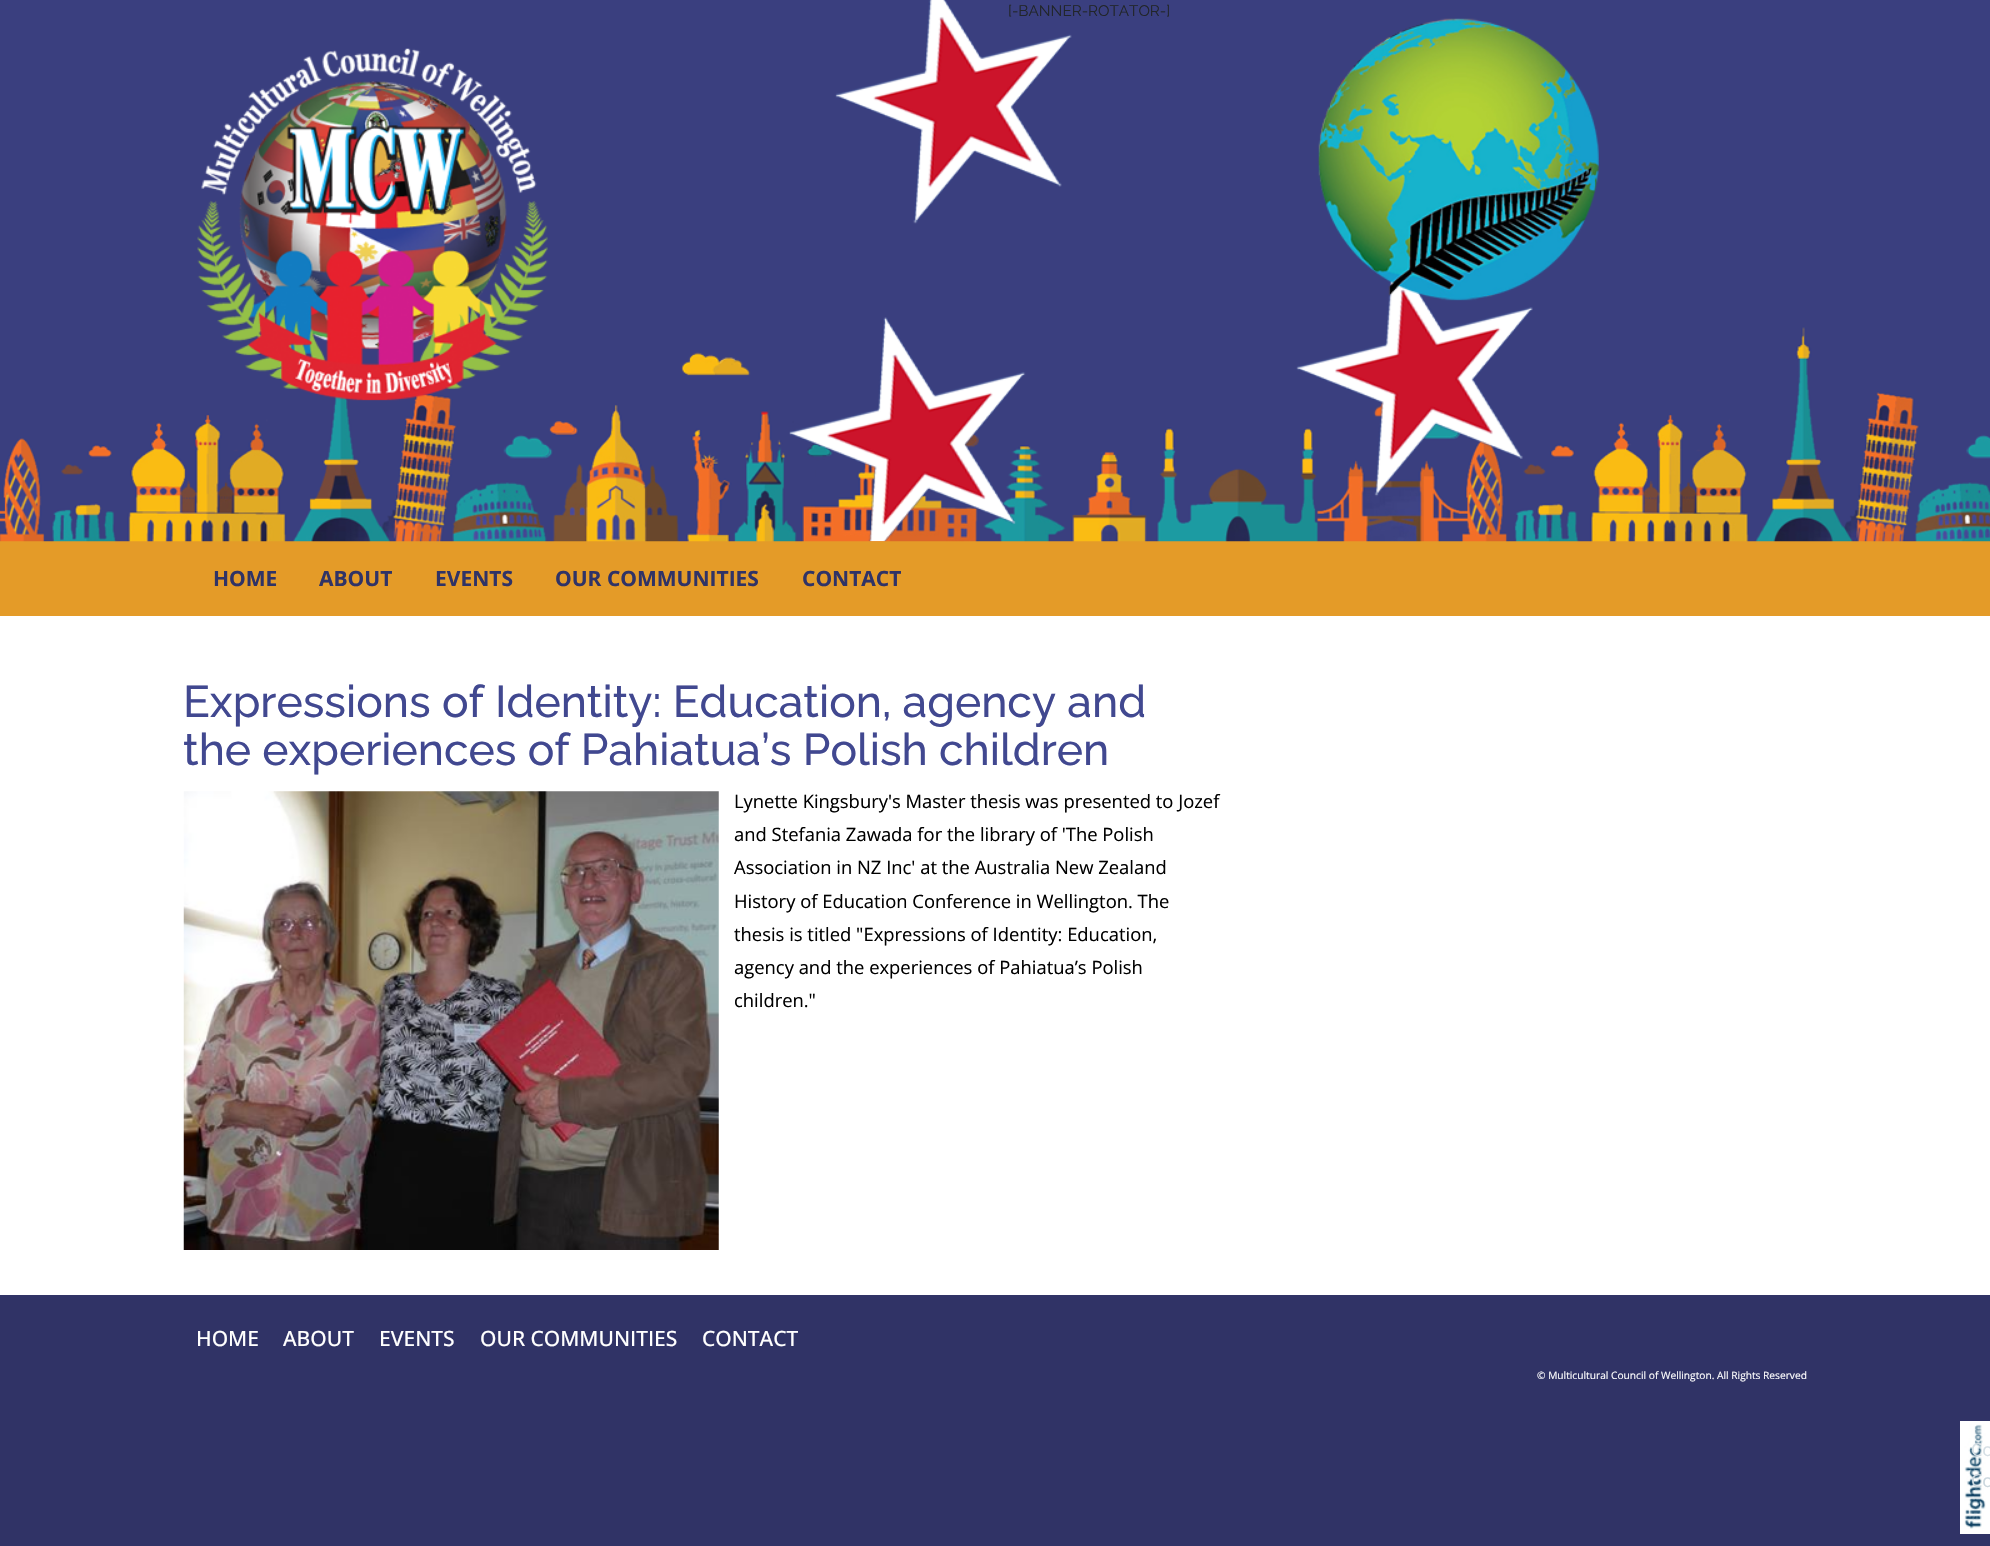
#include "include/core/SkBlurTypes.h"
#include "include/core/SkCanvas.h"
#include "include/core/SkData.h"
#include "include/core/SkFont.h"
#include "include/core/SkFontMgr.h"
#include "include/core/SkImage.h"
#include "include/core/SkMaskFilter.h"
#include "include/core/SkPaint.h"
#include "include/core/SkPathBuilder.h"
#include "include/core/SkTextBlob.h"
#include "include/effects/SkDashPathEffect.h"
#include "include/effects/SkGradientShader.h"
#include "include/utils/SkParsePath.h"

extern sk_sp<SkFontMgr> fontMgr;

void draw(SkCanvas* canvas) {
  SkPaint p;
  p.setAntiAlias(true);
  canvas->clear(SK_ColorWHITE);
  p.setColor(SkColorSetRGB(228, 155, 40));
  canvas->drawRect(SkRect::MakeLTRB(0, 541, 1990, 616), p);
  canvas->drawImageRect(SkImages::DeferredFromEncodedData(SkData::MakeFromFileName("images/1.png")), SkRect::MakeLTRB(0, 0, 1990, 542), SkSamplingOptions());
  canvas->drawImageRect(SkImages::DeferredFromEncodedData(SkData::MakeFromFileName("images/2.png")), SkRect::MakeLTRB(789, 0, 1599, 542), SkSamplingOptions());
  canvas->drawImageRect(SkImages::DeferredFromEncodedData(SkData::MakeFromFileName("images/3.png")), SkRect::MakeLTRB(197, 48, 548, 401), SkSamplingOptions());
  canvas->drawImageRect(SkImages::DeferredFromEncodedData(SkData::MakeFromFileName("images/4.png")), SkRect::MakeLTRB(183, 791, 719, 1250), SkSamplingOptions());
  p.setColor(SkColorSetRGB(48, 51, 102));
  canvas->drawRect(SkRect::MakeLTRB(0, 1295, 1990, 1546), p);
  p.setColor(SK_ColorWHITE);
  canvas->drawRect(SkRect::MakeLTRB(1960, 1421, 1990, 1534), p);
  canvas->drawImageRect(SkImages::DeferredFromEncodedData(SkData::MakeFromFileName("images/5.png")), SkRect::MakeLTRB(1964, 1424, 1986, 1529), SkSamplingOptions());
  SkFont font1(fontMgr->matchFamilyStyle("Raleway", SkFontStyle::Normal()), 15.25f);
  font1.setSubpixel(true);
  p.setColor(SkColorSetRGB(33, 37, 41));
  canvas->drawString("[-BANNER-ROTATOR-]", 1008, 16, font1, p);
  SkFont font2(fontMgr->matchFamilyStyle("Open Sans", SkFontStyle::Bold()), 21);
  font2.setSubpixel(true);
  p.setColor(SkColorSetRGB(48, 51, 102));
  canvas->drawString("HOME", 213, 586, font2, p);
  canvas->drawString("ABOUT", 319, 586, font2, p);
  canvas->drawString("EVENTS", 435, 586, font2, p);
  canvas->drawString("OUR COMMUNITIES", 555, 586, font2, p);
  canvas->drawString("CONTACT", 802, 586, font2, p);
  SkFont font3(fontMgr->matchFamilyStyle("Raleway", SkFontStyle(500, SkFontStyle::kNormal_Width, SkFontStyle::kUpright_Slant)), 44.4f);
  font3.setSubpixel(true);
  p.setColor(SkColorSetRGB(65, 72, 144));
  canvas->drawString("Expressions of Identity: Education, agency and", 183, 717, font3, p);
  canvas->drawString("the experiences of Pahiatua’s Polish children", 183, 765, font3, p);
  SkFont font4(fontMgr->matchFamilyStyle("Open Sans", SkFontStyle::Normal()), 18.4f);
  font4.setSubpixel(true);
  p.setColor(SK_ColorBLACK);
  canvas->drawString("Lynette Kingsbury's Master thesis was presented to Jozef", 734, 808, font4, p);
  canvas->drawString("and Stefania Zawada for the library of 'The Polish", 734, 841, font4, p);
  canvas->drawString("Association in NZ Inc' at the Australia New Zealand", 734, 874, font4, p);
  canvas->drawString("History of Education Conference in Wellington. The", 734, 908, font4, p);
  canvas->drawString("thesis is titled \"Expressions of Identity: Education,", 734, 941, font4, p);
  canvas->drawString("agency and the experiences of Pahiatua’s Polish", 734, 974, font4, p);
  canvas->drawString("children.\"", 734, 1007, font4, p);
  SkFont font5(fontMgr->matchFamilyStyle("Open Sans", SkFontStyle(500, SkFontStyle::kNormal_Width, SkFontStyle::kUpright_Slant)), 21);
  font5.setSubpixel(true);
  p.setColor(SK_ColorWHITE);
  canvas->drawString("HOME", 196, 1346, font5, p);
  canvas->drawString("ABOUT", 283, 1346, font5, p);
  canvas->drawString("EVENTS", 379, 1346, font5, p);
  canvas->drawString("OUR COMMUNITIES", 480, 1346, font5, p);
  canvas->drawString("CONTACT", 702, 1346, font5, p);
  SkFont font6(fontMgr->matchFamilyStyle("Open Sans", SkFontStyle::Normal()), 10.2f);
  font6.setSubpixel(true);
  canvas->drawString("© Multicultural Council of Wellington. All Rights Reserved", 1537, 1379, font6, p);
  SkFont font7(fontMgr->matchFamilyStyle("Open Sans", SkFontStyle::Normal()), 18);
  font7.setSubpixel(true);
  p.setColor(SkColorSetRGB(214, 223, 229));
  canvas->drawString("Co", 1971, 1456, font7, p);
  p.setColor(SkColorSetRGB(203, 215, 222));
  canvas->drawString("Co", 1971, 1487, font7, p);
}
